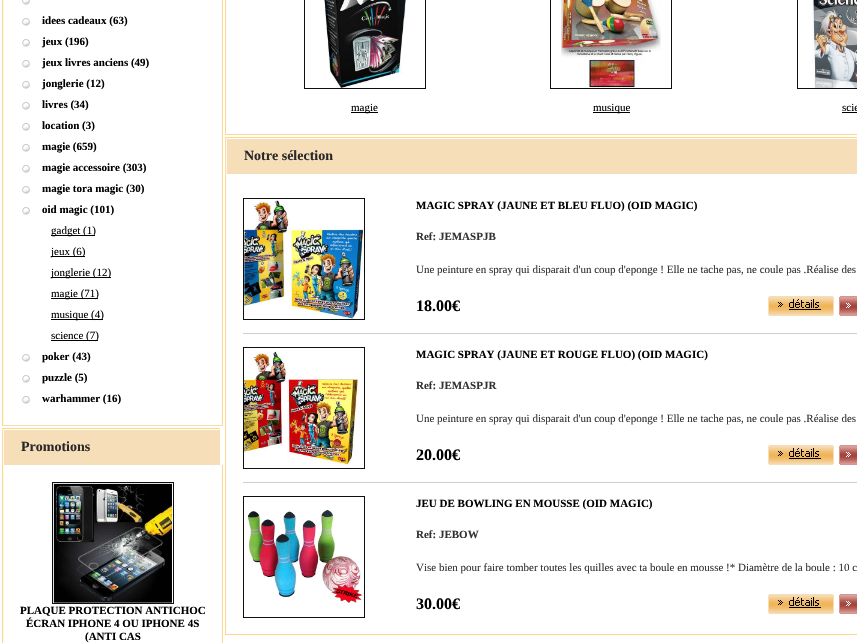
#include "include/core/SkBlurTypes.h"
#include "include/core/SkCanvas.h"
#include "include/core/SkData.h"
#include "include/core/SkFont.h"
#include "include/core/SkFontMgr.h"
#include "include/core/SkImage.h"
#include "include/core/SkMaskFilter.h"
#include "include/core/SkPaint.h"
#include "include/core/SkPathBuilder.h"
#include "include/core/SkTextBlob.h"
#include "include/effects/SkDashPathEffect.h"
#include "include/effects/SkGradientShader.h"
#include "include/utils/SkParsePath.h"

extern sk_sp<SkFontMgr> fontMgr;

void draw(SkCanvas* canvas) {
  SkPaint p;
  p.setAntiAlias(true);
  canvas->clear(SK_ColorWHITE);
  p.setColor(SkColorSetRGB(251, 221, 163));
  canvas->drawRect(SkRect::MakeLTRB(2, 425, 223, 426), p);
  p.setColor(SkColorSetRGB(250, 214, 143));
  canvas->drawRect(SkRect::MakeLTRB(2, 0, 3, 425), p);
  p.setColor(SkColorSetRGB(254, 248, 235));
  canvas->drawRect(SkRect::MakeLTRB(3, 0, 4, 425), p);
  canvas->drawImageRect(SkImages::DeferredFromEncodedData(SkData::MakeFromFileName("images/1.png")), SkRect::MakeLTRB(22, 0, 30, 5), SkSamplingOptions());
  canvas->drawImageRect(SkImages::DeferredFromEncodedData(SkData::MakeFromFileName("images/2.png")), SkRect::MakeLTRB(22, 18, 30, 26), SkSamplingOptions());
  canvas->drawImageRect(SkImages::DeferredFromEncodedData(SkData::MakeFromFileName("images/2.png")), SkRect::MakeLTRB(22, 39, 30, 47), SkSamplingOptions());
  canvas->drawImageRect(SkImages::DeferredFromEncodedData(SkData::MakeFromFileName("images/2.png")), SkRect::MakeLTRB(22, 60, 30, 68), SkSamplingOptions());
  canvas->drawImageRect(SkImages::DeferredFromEncodedData(SkData::MakeFromFileName("images/2.png")), SkRect::MakeLTRB(22, 81, 30, 89), SkSamplingOptions());
  canvas->drawImageRect(SkImages::DeferredFromEncodedData(SkData::MakeFromFileName("images/2.png")), SkRect::MakeLTRB(22, 102, 30, 110), SkSamplingOptions());
  canvas->drawImageRect(SkImages::DeferredFromEncodedData(SkData::MakeFromFileName("images/2.png")), SkRect::MakeLTRB(22, 123, 30, 131), SkSamplingOptions());
  canvas->drawImageRect(SkImages::DeferredFromEncodedData(SkData::MakeFromFileName("images/2.png")), SkRect::MakeLTRB(22, 144, 30, 152), SkSamplingOptions());
  canvas->drawImageRect(SkImages::DeferredFromEncodedData(SkData::MakeFromFileName("images/2.png")), SkRect::MakeLTRB(22, 165, 30, 173), SkSamplingOptions());
  canvas->drawImageRect(SkImages::DeferredFromEncodedData(SkData::MakeFromFileName("images/2.png")), SkRect::MakeLTRB(22, 186, 30, 194), SkSamplingOptions());
  canvas->drawImageRect(SkImages::DeferredFromEncodedData(SkData::MakeFromFileName("images/2.png")), SkRect::MakeLTRB(22, 207, 30, 215), SkSamplingOptions());
  p.setColor(SK_ColorBLACK);
  canvas->drawRect(SkRect::MakeLTRB(51, 235, 95, 236), p);
  canvas->drawRect(SkRect::MakeLTRB(51, 256, 85, 257), p);
  canvas->drawRect(SkRect::MakeLTRB(51, 277, 111, 278), p);
  canvas->drawRect(SkRect::MakeLTRB(51, 298, 98, 299), p);
  canvas->drawRect(SkRect::MakeLTRB(51, 319, 103, 320), p);
  canvas->drawRect(SkRect::MakeLTRB(51, 340, 98, 341), p);
  canvas->drawImageRect(SkImages::DeferredFromEncodedData(SkData::MakeFromFileName("images/2.png")), SkRect::MakeLTRB(22, 354, 30, 362), SkSamplingOptions());
  canvas->drawImageRect(SkImages::DeferredFromEncodedData(SkData::MakeFromFileName("images/2.png")), SkRect::MakeLTRB(22, 375, 30, 383), SkSamplingOptions());
  canvas->drawImageRect(SkImages::DeferredFromEncodedData(SkData::MakeFromFileName("images/2.png")), SkRect::MakeLTRB(22, 396, 30, 404), SkSamplingOptions());
  p.setColor(SkColorSetRGB(250, 214, 143));
  canvas->drawRect(SkRect::MakeLTRB(222, 0, 223, 425), p);
  p.setColor(SkColorSetRGB(246, 222, 185));
  canvas->drawRect(SkRect::MakeLTRB(4, 430, 220, 465), p);
  canvas->drawImageRect(SkImages::DeferredFromEncodedData(SkData::MakeFromFileName("images/3.png")), SkRect::MakeLTRB(2, 428, 4, 465), SkSamplingOptions());
  canvas->drawImageRect(SkImages::DeferredFromEncodedData(SkData::MakeFromFileName("images/4.png")), SkRect::MakeLTRB(3, 428, 21, 430), SkSamplingOptions());
  canvas->drawImageRect(SkImages::DeferredFromEncodedData(SkData::MakeFromFileName("images/5.png")), SkRect::MakeLTRB(21, 428, 220, 430), SkSamplingOptions());
  p.setColor(SkColorSetRGB(250, 214, 143));
  canvas->drawRect(SkRect::MakeLTRB(2, 465, 3, 643), p);
  p.setColor(SkColorSetRGB(254, 248, 235));
  canvas->drawRect(SkRect::MakeLTRB(3, 465, 4, 643), p);
  p.setStyle(SkPaint::kStroke_Style);
  p.setStrokeWidth(1);
  p.setColor(SkColorSetRGB(15, 15, 15));
  canvas->drawRect(SkRect::MakeLTRB(52.5f, 482.5f, 173.5f, 603.5f), p);
  canvas->drawImageRect(SkImages::DeferredFromEncodedData(SkData::MakeFromFileName("images/6.png")), SkRect::MakeLTRB(53, 483, 173, 603), SkSamplingOptions());
  p.setStyle(SkPaint::kFill_Style);
  p.setColor(SkColorSetRGB(250, 214, 143));
  canvas->drawRect(SkRect::MakeLTRB(222, 465, 223, 643), p);
  canvas->drawRect(SkRect::MakeLTRB(225, 134, 857, 135), p);
  canvas->drawRect(SkRect::MakeLTRB(225, 0, 226, 135), p);
  p.setStyle(SkPaint::kStroke_Style);
  p.setColor(SkColorSetRGB(15, 15, 15));
  canvas->drawRect(SkRect::MakeLTRB(304.5f, -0.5f, 425.5f, 88.5f), p);
  canvas->drawImageRect(SkImages::DeferredFromEncodedData(SkData::MakeFromFileName("images/7.png")), SkRect::MakeLTRB(324, 0, 406, 88), SkSamplingOptions());
  p.setStyle(SkPaint::kFill_Style);
  p.setColor(SK_ColorBLACK);
  canvas->drawRect(SkRect::MakeLTRB(351, 112, 378, 113), p);
  p.setStyle(SkPaint::kStroke_Style);
  p.setColor(SkColorSetRGB(15, 15, 15));
  canvas->drawRect(SkRect::MakeLTRB(550.5f, -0.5f, 671.5f, 88.5f), p);
  canvas->drawImageRect(SkImages::DeferredFromEncodedData(SkData::MakeFromFileName("images/8.png")), SkRect::MakeLTRB(561, 0, 661, 88), SkSamplingOptions());
  p.setStyle(SkPaint::kFill_Style);
  p.setColor(SK_ColorBLACK);
  canvas->drawRect(SkRect::MakeLTRB(593, 112, 630, 113), p);
  p.setStyle(SkPaint::kStroke_Style);
  p.setColor(SkColorSetRGB(15, 15, 15));
  canvas->drawRect(SkRect::MakeLTRB(797.5f, -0.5f, 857.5f, 88.5f), p);
  canvas->drawImageRect(SkImages::DeferredFromEncodedData(SkData::MakeFromFileName("images/9.png")), SkRect::MakeLTRB(812, 0, 857, 88), SkSamplingOptions());
  p.setStyle(SkPaint::kFill_Style);
  p.setColor(SK_ColorBLACK);
  canvas->drawRect(SkRect::MakeLTRB(842, 112, 857, 113), p);
  p.setColor(SkColorSetRGB(246, 222, 185));
  canvas->drawRect(SkRect::MakeLTRB(227, 139, 857, 174), p);
  canvas->drawImageRect(SkImages::DeferredFromEncodedData(SkData::MakeFromFileName("images/3.png")), SkRect::MakeLTRB(225, 137, 227, 174), SkSamplingOptions());
  canvas->drawImageRect(SkImages::DeferredFromEncodedData(SkData::MakeFromFileName("images/4.png")), SkRect::MakeLTRB(226, 137, 244, 139), SkSamplingOptions());
  canvas->drawImageRect(SkImages::DeferredFromEncodedData(SkData::MakeFromFileName("images/10.png")), SkRect::MakeLTRB(244, 137, 857, 139), SkSamplingOptions());
  p.setColor(SkColorSetRGB(250, 214, 143));
  canvas->drawRect(SkRect::MakeLTRB(225, 634, 857, 635), p);
  canvas->drawRect(SkRect::MakeLTRB(225, 174, 226, 635), p);
  p.setStyle(SkPaint::kStroke_Style);
  p.setColor(SkColorSetRGB(15, 15, 15));
  canvas->drawRect(SkRect::MakeLTRB(243.5f, 198.5f, 364.5f, 319.5f), p);
  canvas->drawImageRect(SkImages::DeferredFromEncodedData(SkData::MakeFromFileName("images/11.png")), SkRect::MakeLTRB(244, 199, 364, 319), SkSamplingOptions());
  canvas->drawImageRect(SkImages::DeferredFromEncodedData(SkData::MakeFromFileName("images/12.png")), SkRect::MakeLTRB(768, 296, 834, 316), SkSamplingOptions());
  canvas->drawImageRect(SkImages::DeferredFromEncodedData(SkData::MakeFromFileName("images/13.png")), SkRect::MakeLTRB(839, 296, 857, 316), SkSamplingOptions());
  p.setStyle(SkPaint::kFill_Style);
  p.setColor(SkColorSetRGB(207, 205, 205));
  canvas->drawRect(SkRect::MakeLTRB(243, 333, 857, 334), p);
  p.setStyle(SkPaint::kStroke_Style);
  p.setColor(SkColorSetRGB(15, 15, 15));
  canvas->drawRect(SkRect::MakeLTRB(243.5f, 347.5f, 364.5f, 468.5f), p);
  canvas->drawImageRect(SkImages::DeferredFromEncodedData(SkData::MakeFromFileName("images/14.png")), SkRect::MakeLTRB(244, 351, 359, 468), SkSamplingOptions());
  canvas->drawImageRect(SkImages::DeferredFromEncodedData(SkData::MakeFromFileName("images/12.png")), SkRect::MakeLTRB(768, 445, 834, 465), SkSamplingOptions());
  canvas->drawImageRect(SkImages::DeferredFromEncodedData(SkData::MakeFromFileName("images/13.png")), SkRect::MakeLTRB(839, 445, 857, 465), SkSamplingOptions());
  p.setStyle(SkPaint::kFill_Style);
  p.setColor(SkColorSetRGB(207, 205, 205));
  canvas->drawRect(SkRect::MakeLTRB(243, 482, 857, 483), p);
  p.setStyle(SkPaint::kStroke_Style);
  p.setColor(SkColorSetRGB(15, 15, 15));
  canvas->drawRect(SkRect::MakeLTRB(243.5f, 496.5f, 364.5f, 617.5f), p);
  canvas->drawImageRect(SkImages::DeferredFromEncodedData(SkData::MakeFromFileName("images/15.png")), SkRect::MakeLTRB(247, 509, 364, 603), SkSamplingOptions());
  canvas->drawImageRect(SkImages::DeferredFromEncodedData(SkData::MakeFromFileName("images/12.png")), SkRect::MakeLTRB(768, 594, 834, 614), SkSamplingOptions());
  canvas->drawImageRect(SkImages::DeferredFromEncodedData(SkData::MakeFromFileName("images/13.png")), SkRect::MakeLTRB(839, 594, 857, 614), SkSamplingOptions());
  SkFont font1(fontMgr->matchFamilyStyle("Liberation Serif", SkFontStyle::Bold()), 11);
  font1.setSubpixel(true);
  p.setStyle(SkPaint::kFill_Style);
  p.setColor(SK_ColorBLACK);
  canvas->drawString("idees cadeaux (63)", 42, 24, font1, p);
  canvas->drawString("jeux (196)", 42, 45, font1, p);
  canvas->drawString("jeux livres anciens (49)", 42, 66, font1, p);
  canvas->drawString("jonglerie (12)", 42, 87, font1, p);
  canvas->drawString("livres (34)", 42, 108, font1, p);
  canvas->drawString("location (3)", 42, 129, font1, p);
  canvas->drawString("magie (659)", 42, 150, font1, p);
  canvas->drawString("magie accessoire (303)", 42, 171, font1, p);
  canvas->drawString("magie tora magic (30)", 42, 192, font1, p);
  canvas->drawString("oid magic (101)", 42, 213, font1, p);
  SkFont font2(fontMgr->matchFamilyStyle("Liberation Serif", SkFontStyle::Normal()), 11);
  font2.setSubpixel(true);
  canvas->drawString("gadget (1)", 51, 234, font2, p);
  canvas->drawString("jeux (6)", 51, 255, font2, p);
  canvas->drawString("jonglerie (12)", 51, 276, font2, p);
  canvas->drawString("magie (71)", 51, 297, font2, p);
  canvas->drawString("musique (4)", 51, 318, font2, p);
  canvas->drawString("science (7)", 51, 339, font2, p);
  canvas->drawString("poker (43)", 42, 360, font1, p);
  canvas->drawString("puzzle (5)", 42, 381, font1, p);
  canvas->drawString("warhammer (16)", 42, 402, font1, p);
  SkFont font3(fontMgr->matchFamilyStyle("Liberation Serif", SkFontStyle::Bold()), 14);
  font3.setSubpixel(true);
  p.setColor(SkColorSetRGB(41, 41, 41));
  canvas->drawString("Promotions", 21, 451, font3, p);
  p.setColor(SK_ColorBLACK);
  canvas->drawString("PLAQUE PROTECTION ANTICHOC", 20, 614, font1, p);
  canvas->drawString("ÉCRAN IPHONE 4 OU IPHONE 4S", 26, 627, font1, p);
  canvas->drawString("(ANTI CAS", 85, 640, font1, p);
  canvas->drawString("magie", 351, 111, font2, p);
  canvas->drawString("musique", 593, 111, font2, p);
  canvas->drawString("scie", 842, 111, font2, p);
  p.setColor(SkColorSetRGB(41, 41, 41));
  canvas->drawString("Notre sélection", 244, 160, font3, p);
  p.setColor(SK_ColorBLACK);
  canvas->drawString("MAGIC SPRAY (JAUNE ET BLEU FLUO) (OID MAGIC)", 416, 209, font1, p);
  p.setColor(SkColorSetRGB(51, 51, 51));
  canvas->drawString("Ref: JEMASPJB", 416, 240, font1, p);
  canvas->drawString("Une peinture en spray qui disparait d'un coup d'eponge ! Elle ne tache pas, ne coule pas .Réalise des", 416, 273, font2, p);
  SkFont font4(fontMgr->matchFamilyStyle("Liberation Serif", SkFontStyle::Bold()), 16);
  font4.setSubpixel(true);
  p.setColor(SK_ColorBLACK);
  canvas->drawString("18.00€", 416, 311, font4, p);
  canvas->drawString("MAGIC SPRAY (JAUNE ET ROUGE FLUO) (OID MAGIC)", 416, 358, font1, p);
  p.setColor(SkColorSetRGB(51, 51, 51));
  canvas->drawString("Ref: JEMASPJR", 416, 389, font1, p);
  canvas->drawString("Une peinture en spray qui disparait d'un coup d'eponge ! Elle ne tache pas, ne coule pas .Réalise des", 416, 422, font2, p);
  p.setColor(SK_ColorBLACK);
  canvas->drawString("20.00€", 416, 460, font4, p);
  canvas->drawString("JEU DE BOWLING EN MOUSSE (OID MAGIC)", 416, 507, font1, p);
  p.setColor(SkColorSetRGB(51, 51, 51));
  canvas->drawString("Ref: JEBOW", 416, 538, font1, p);
  canvas->drawString("Vise bien pour faire tomber toutes les quilles avec ta boule en mousse !* Diamètre de la boule : 10 c", 416, 571, font2, p);
  p.setColor(SK_ColorBLACK);
  canvas->drawString("30.00€", 416, 609, font4, p);
}
